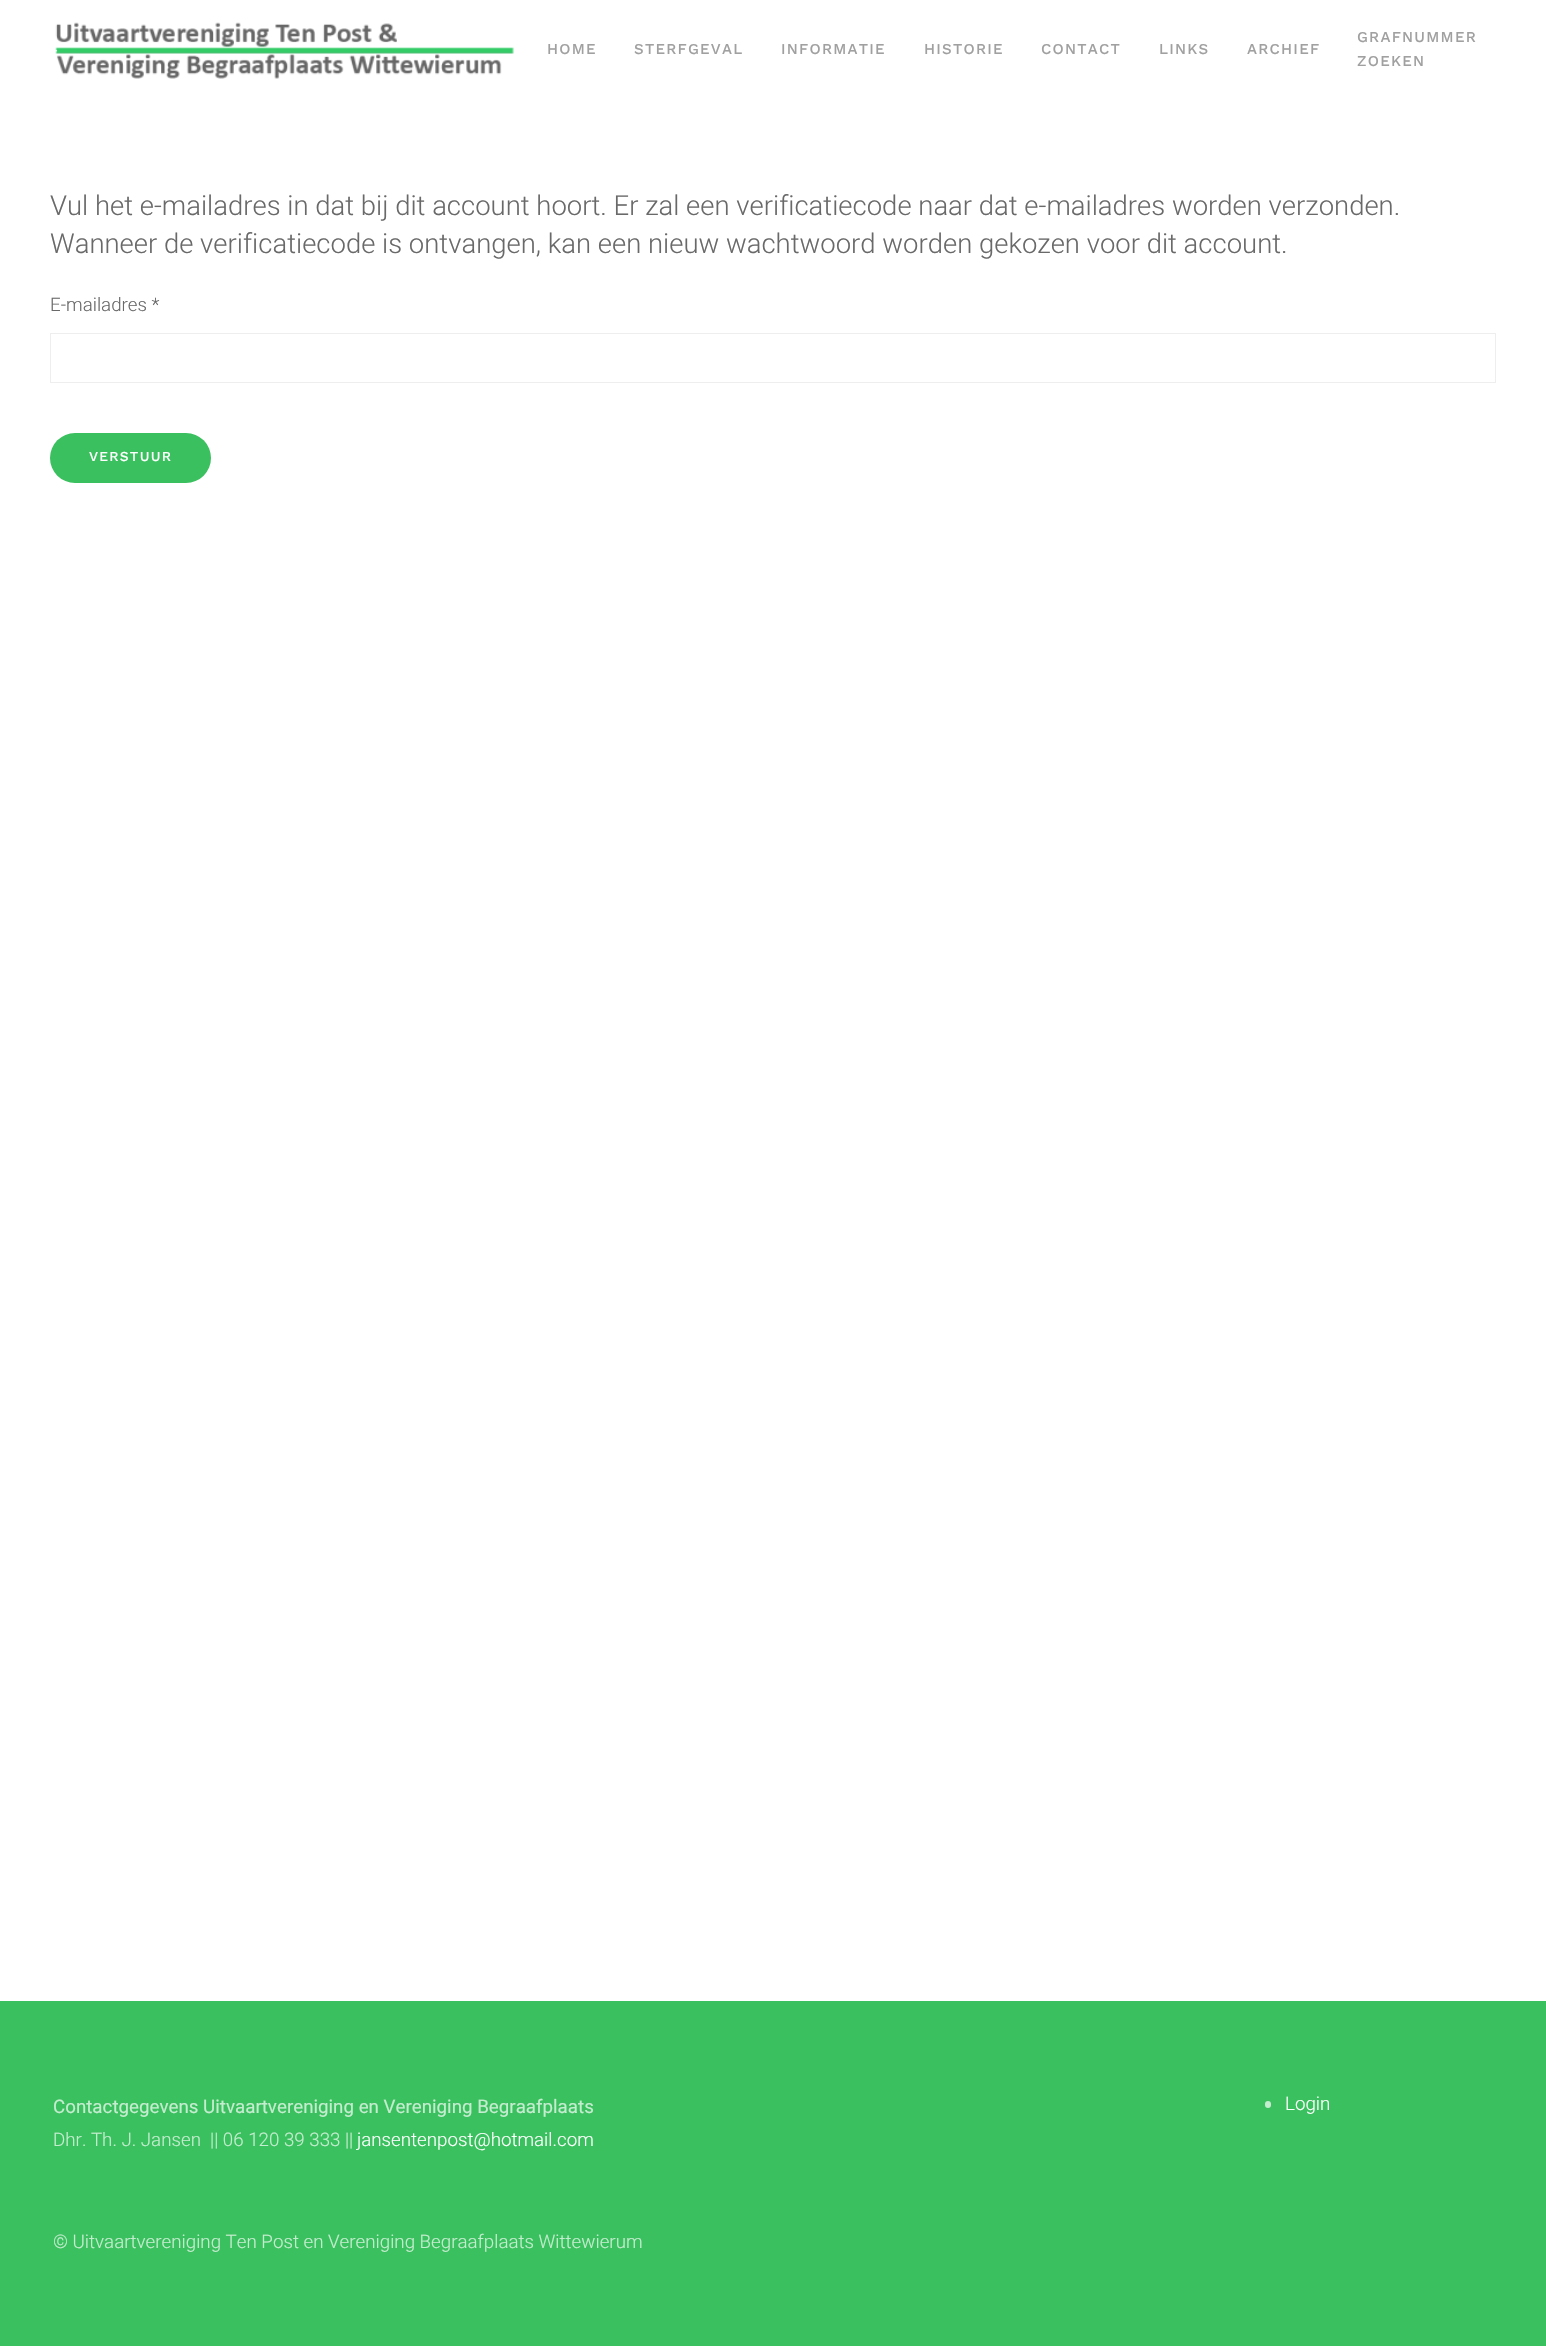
#include "include/core/SkBlurTypes.h"
#include "include/core/SkCanvas.h"
#include "include/core/SkData.h"
#include "include/core/SkFont.h"
#include "include/core/SkFontMgr.h"
#include "include/core/SkImage.h"
#include "include/core/SkMaskFilter.h"
#include "include/core/SkPaint.h"
#include "include/core/SkPathBuilder.h"
#include "include/core/SkTextBlob.h"
#include "include/effects/SkDashPathEffect.h"
#include "include/effects/SkGradientShader.h"
#include "include/utils/SkParsePath.h"

extern sk_sp<SkFontMgr> fontMgr;

void draw(SkCanvas* canvas) {
  SkPaint p;
  p.setAntiAlias(true);
  auto spacedText = [&](const char* s, float x, float y, const SkFont& font, const SkPaint& ink, float letter, float word) {
    std::vector<SkGlyphID> glyphs(font.countText(s, strlen(s), SkTextEncoding::kUTF8));
    std::vector<float> xs(glyphs.size());
    font.textToGlyphs(s, strlen(s), SkTextEncoding::kUTF8, glyphs);
    font.getXPos(glyphs, xs, x);
    float extra = 0;
    for (size_t i = 0; i < glyphs.size(); i++) {
      xs[i] += extra;
      extra += letter + word * (glyphs[i] == font.unicharToGlyph(' '));
    }
    canvas->drawTextBlob(SkTextBlob::MakeFromPosHGlyphs(glyphs, xs, y, font), 0, 0, ink);
  };
  canvas->clear(SK_ColorWHITE);
  canvas->drawImageRect(SkImages::DeferredFromEncodedData(SkData::MakeFromFileName("images/1.png")), SkRect::MakeLTRB(55, 22, 514, 79), SkSamplingOptions());
  p.setStyle(SkPaint::kStroke_Style);
  p.setStrokeWidth(1);
  p.setColor(SkColorSetRGB(238, 238, 238));
  canvas->drawRect(SkRect::MakeLTRB(50.5f, 333.5f, 1495.5f, 382.5f), p);
  p.setStyle(SkPaint::kFill_Style);
  p.setColor(SkColorSetRGB(58, 192, 94));
  canvas->drawRoundRect(SkRect::MakeLTRB(50, 433, 211, 483), 25, 25, p);
  canvas->drawRect(SkRect::MakeLTRB(0, 2001, 1546, 2346), p);
  p.setColor(SkColorSetRGB(196, 236, 207));
  canvas->drawRoundRect(SkRect::MakeLTRB(1265, 2101, 1271, 2108), 3, 3, p);
  SkFont font1(fontMgr->matchFamilyStyle("Work Sans", SkFontStyle(500, SkFontStyle::kNormal_Width, SkFontStyle::kUpright_Slant)), 15);
  font1.setSubpixel(true);
  p.setColor(SkColorSetRGB(160, 160, 160));
  spacedText("HOME", 547, 54, font1, p, 1.25f, 0);
  spacedText("STERFGEVAL", 634, 54, font1, p, 1.25f, 0);
  spacedText("INFORMATIE", 781, 54, font1, p, 1.25f, 0);
  spacedText("HISTORIE", 924, 54, font1, p, 1.25f, 0);
  spacedText("CONTACT", 1041, 54, font1, p, 1.25f, 0);
  spacedText("LINKS", 1159, 54, font1, p, 1.25f, 0);
  spacedText("ARCHIEF", 1247, 54, font1, p, 1.25f, 0);
  spacedText("GRAFNUMMER", 1357, 42, font1, p, 1.25f, 0);
  spacedText("ZOEKEN", 1357, 66, font1, p, 1.25f, 0);
  SkFont font2(fontMgr->matchFamilyStyle("Roboto", SkFontStyle(300, SkFontStyle::kNormal_Width, SkFontStyle::kUpright_Slant)), 27.5f);
  font2.setSubpixel(true);
  p.setColor(SkColorSetRGB(105, 105, 105));
  canvas->drawString("Vul het e-mailadres in dat bij dit account hoort. Er zal een verificatiecode naar dat e-mailadres worden verzonden.", 50, 215, font2, p);
  canvas->drawString("Wanneer de verificatiecode is ontvangen, kan een nieuw wachtwoord worden gekozen voor dit account.", 50, 253, font2, p);
  SkFont font3(fontMgr->matchFamilyStyle("Roboto", SkFontStyle(300, SkFontStyle::kNormal_Width, SkFontStyle::kUpright_Slant)), 18.75f);
  font3.setSubpixel(true);
  canvas->drawString("E-mailadres *", 50, 311, font3, p);
  SkFont font4(fontMgr->matchFamilyStyle("Work Sans", SkFontStyle(500, SkFontStyle::kNormal_Width, SkFontStyle::kUpright_Slant)), 13.75f);
  font4.setSubpixel(true);
  p.setColor(SK_ColorWHITE);
  spacedText("VERSTUUR", 89, 461, font4, p, 1.25f, 0);
  SkFont font5(fontMgr->matchFamilyStyle("Roboto", SkFontStyle::Normal()), 18.75f);
  font5.setSubpixel(true);
  p.setColor(SkColorSetRGB(196, 236, 207));
  canvas->drawString("Contactgegevens Uitvaartvereniging en Vereniging Begraafplaats", 53, 2113, font5, p);
  canvas->drawString("Dhr. Th. J. Jansen", 53, 2146, font3, p);
  canvas->drawString("|| 06 120 39 333 ||", 210, 2146, font3, p);
  p.setColor(SK_ColorWHITE);
  canvas->drawString("jansentenpost@hotmail.com", 357, 2146, font3, p);
  p.setColor(SkColorSetRGB(196, 236, 207));
  canvas->drawString("© Uitvaartvereniging Ten Post en Vereniging Begraafplaats Wittewierum", 53, 2248, font3, p);
  p.setColor(SK_ColorWHITE);
  canvas->drawString("Login", 1285, 2110, font3, p);
}
